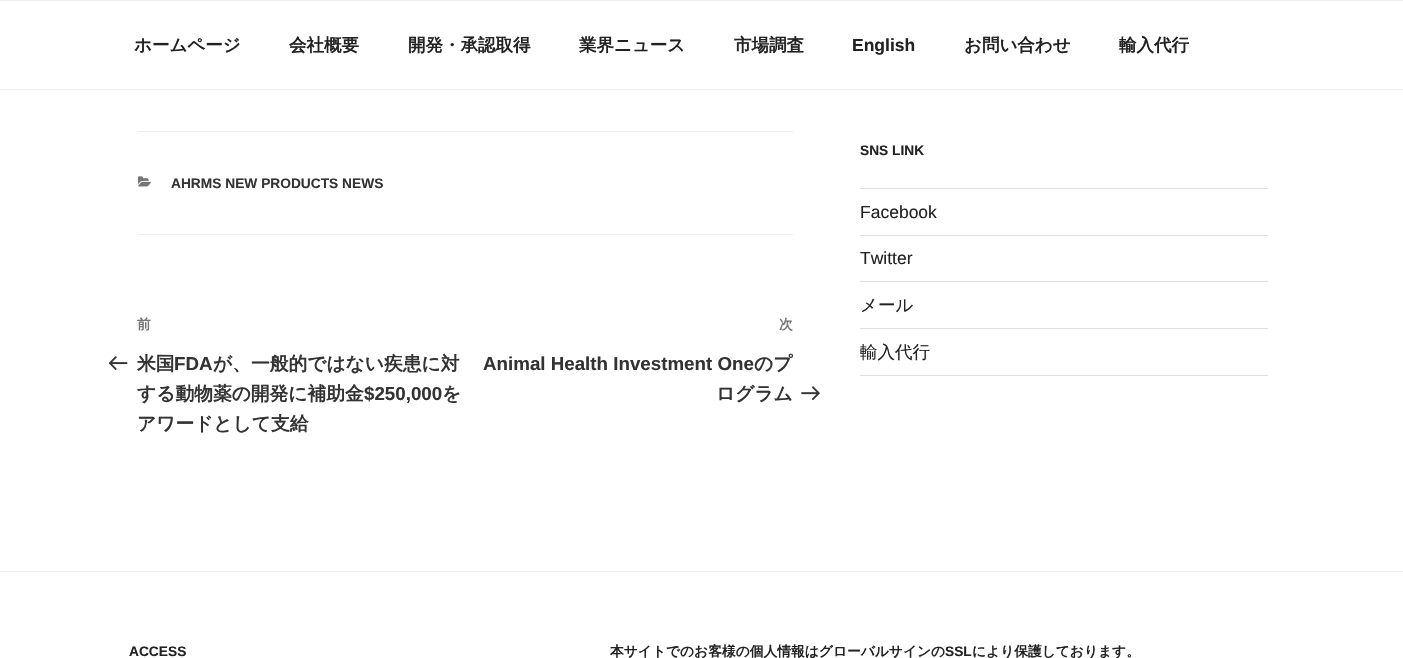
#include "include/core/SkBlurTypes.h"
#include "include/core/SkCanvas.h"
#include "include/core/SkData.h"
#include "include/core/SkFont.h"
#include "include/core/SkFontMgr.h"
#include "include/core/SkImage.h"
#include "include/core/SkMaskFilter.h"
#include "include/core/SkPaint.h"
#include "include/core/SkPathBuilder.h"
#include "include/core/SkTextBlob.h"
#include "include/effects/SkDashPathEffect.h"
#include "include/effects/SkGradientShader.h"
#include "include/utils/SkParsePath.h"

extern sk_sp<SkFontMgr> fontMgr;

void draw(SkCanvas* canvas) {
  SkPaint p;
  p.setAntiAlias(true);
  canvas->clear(SK_ColorWHITE);
  p.setColor(SkColorSetRGB(238, 238, 238));
  canvas->drawRect(SkRect::MakeLTRB(0, 0, 1403, 1), p);
  canvas->drawRect(SkRect::MakeLTRB(0, 89, 1403, 90), p);
  canvas->drawRect(SkRect::MakeLTRB(138, 131, 793, 132), p);
  canvas->drawRect(SkRect::MakeLTRB(138, 234, 793, 235), p);
  canvas->drawImageRect(SkImages::DeferredFromEncodedData(SkData::MakeFromFileName("images/1.png")), SkRect::MakeLTRB(138, 176, 151, 187), SkSamplingOptions());
  canvas->drawImageRect(SkImages::DeferredFromEncodedData(SkData::MakeFromFileName("images/2.png")), SkRect::MakeLTRB(109, 356, 128, 370), SkSamplingOptions());
  canvas->drawImageRect(SkImages::DeferredFromEncodedData(SkData::MakeFromFileName("images/3.png")), SkRect::MakeLTRB(801, 386, 820, 401), SkSamplingOptions());
  p.setColor(SkColorSetRGB(221, 221, 221));
  canvas->drawRect(SkRect::MakeLTRB(860, 188, 1268, 189), p);
  canvas->drawRect(SkRect::MakeLTRB(860, 235, 1268, 236), p);
  canvas->drawRect(SkRect::MakeLTRB(860, 281, 1268, 282), p);
  canvas->drawRect(SkRect::MakeLTRB(860, 328, 1268, 329), p);
  canvas->drawRect(SkRect::MakeLTRB(860, 375, 1268, 376), p);
  p.setColor(SkColorSetRGB(238, 238, 238));
  canvas->drawRect(SkRect::MakeLTRB(0, 571, 1403, 572), p);
  SkFont font1(fontMgr->matchFamilyStyle("WenQuanYi Zen Hei", SkFontStyle::Bold()), 17.5f);
  font1.setSubpixel(true);
  p.setColor(SkColorSetRGB(34, 34, 34));
  canvas->drawString("ホームページ", 134, 51, font1, p);
  canvas->drawString("会社概要", 289, 51, font1, p);
  canvas->drawString("開発・承認取得", 408, 51, font1, p);
  canvas->drawString("業界ニュース", 579, 51, font1, p);
  canvas->drawString("市場調査", 734, 51, font1, p);
  SkFont font2(fontMgr->matchFamilyStyle("Liberation Sans", SkFontStyle::Bold()), 17.5f);
  font2.setSubpixel(true);
  canvas->drawString("English", 852, 51, font2, p);
  canvas->drawString("お問い合わせ", 964, 51, font1, p);
  canvas->drawString("輸入代行", 1119, 51, font1, p);
  SkFont font3(fontMgr->matchFamilyStyle("Liberation Sans", SkFontStyle::Bold()), 13.75f);
  font3.setSubpixel(true);
  p.setColor(SkColorSetRGB(51, 51, 51));
  canvas->drawString("AHRMS NEW PRODUCTS NEWS", 171, 188, font3, p);
  SkFont font4(fontMgr->matchFamilyStyle("WenQuanYi Zen Hei", SkFontStyle::Bold()), 13.75f);
  font4.setSubpixel(true);
  p.setColor(SkColorSetRGB(118, 118, 118));
  canvas->drawString("前", 137, 329, font4, p);
  SkFont font5(fontMgr->matchFamilyStyle("WenQuanYi Zen Hei", SkFontStyle::Bold()), 18.75f);
  font5.setSubpixel(true);
  p.setColor(SkColorSetRGB(51, 51, 51));
  canvas->drawString("米国", 137, 370, font5, p);
  SkFont font6(fontMgr->matchFamilyStyle("Liberation Sans", SkFontStyle::Bold()), 18.75f);
  font6.setSubpixel(true);
  canvas->drawString("FDA", 174, 370, font6, p);
  canvas->drawString("が、一般的ではない疾患に対", 213, 370, font5, p);
  canvas->drawString("する動物薬の開発に補助金", 137, 400, font5, p);
  canvas->drawString("$250,000", 364, 400, font6, p);
  canvas->drawString("を", 442, 400, font5, p);
  canvas->drawString("アワードとして支給", 137, 430, font5, p);
  p.setColor(SkColorSetRGB(118, 118, 118));
  canvas->drawString("次", 779, 329, font4, p);
  p.setColor(SkColorSetRGB(51, 51, 51));
  canvas->drawString("Animal Health Investment One", 483, 370, font6, p);
  canvas->drawString("のプ", 754, 370, font5, p);
  canvas->drawString("ログラム", 716, 400, font5, p);
  p.setColor(SkColorSetRGB(34, 34, 34));
  canvas->drawString("SNS LINK", 860, 155, font3, p);
  SkFont font7(fontMgr->matchFamilyStyle("Liberation Sans", SkFontStyle::Normal()), 17.5f);
  font7.setSubpixel(true);
  canvas->drawString("Facebook", 860, 218, font7, p);
  canvas->drawString("Twitter", 860, 264, font7, p);
  SkFont font8(fontMgr->matchFamilyStyle("WenQuanYi Zen Hei", SkFontStyle(500, SkFontStyle::kNormal_Width, SkFontStyle::kUpright_Slant)), 17.5f);
  font8.setSubpixel(true);
  canvas->drawString("メール", 860, 311, font8, p);
  canvas->drawString("輸入代行", 860, 358, font8, p);
  canvas->drawString("ACCESS", 129, 656, font3, p);
  canvas->drawString("本サイトでのお客様の個人情報はグローバルサインの", 610, 656, font4, p);
  canvas->drawString("SSL", 945, 656, font3, p);
  canvas->drawString("により保護しております。", 972, 656, font4, p);
}
